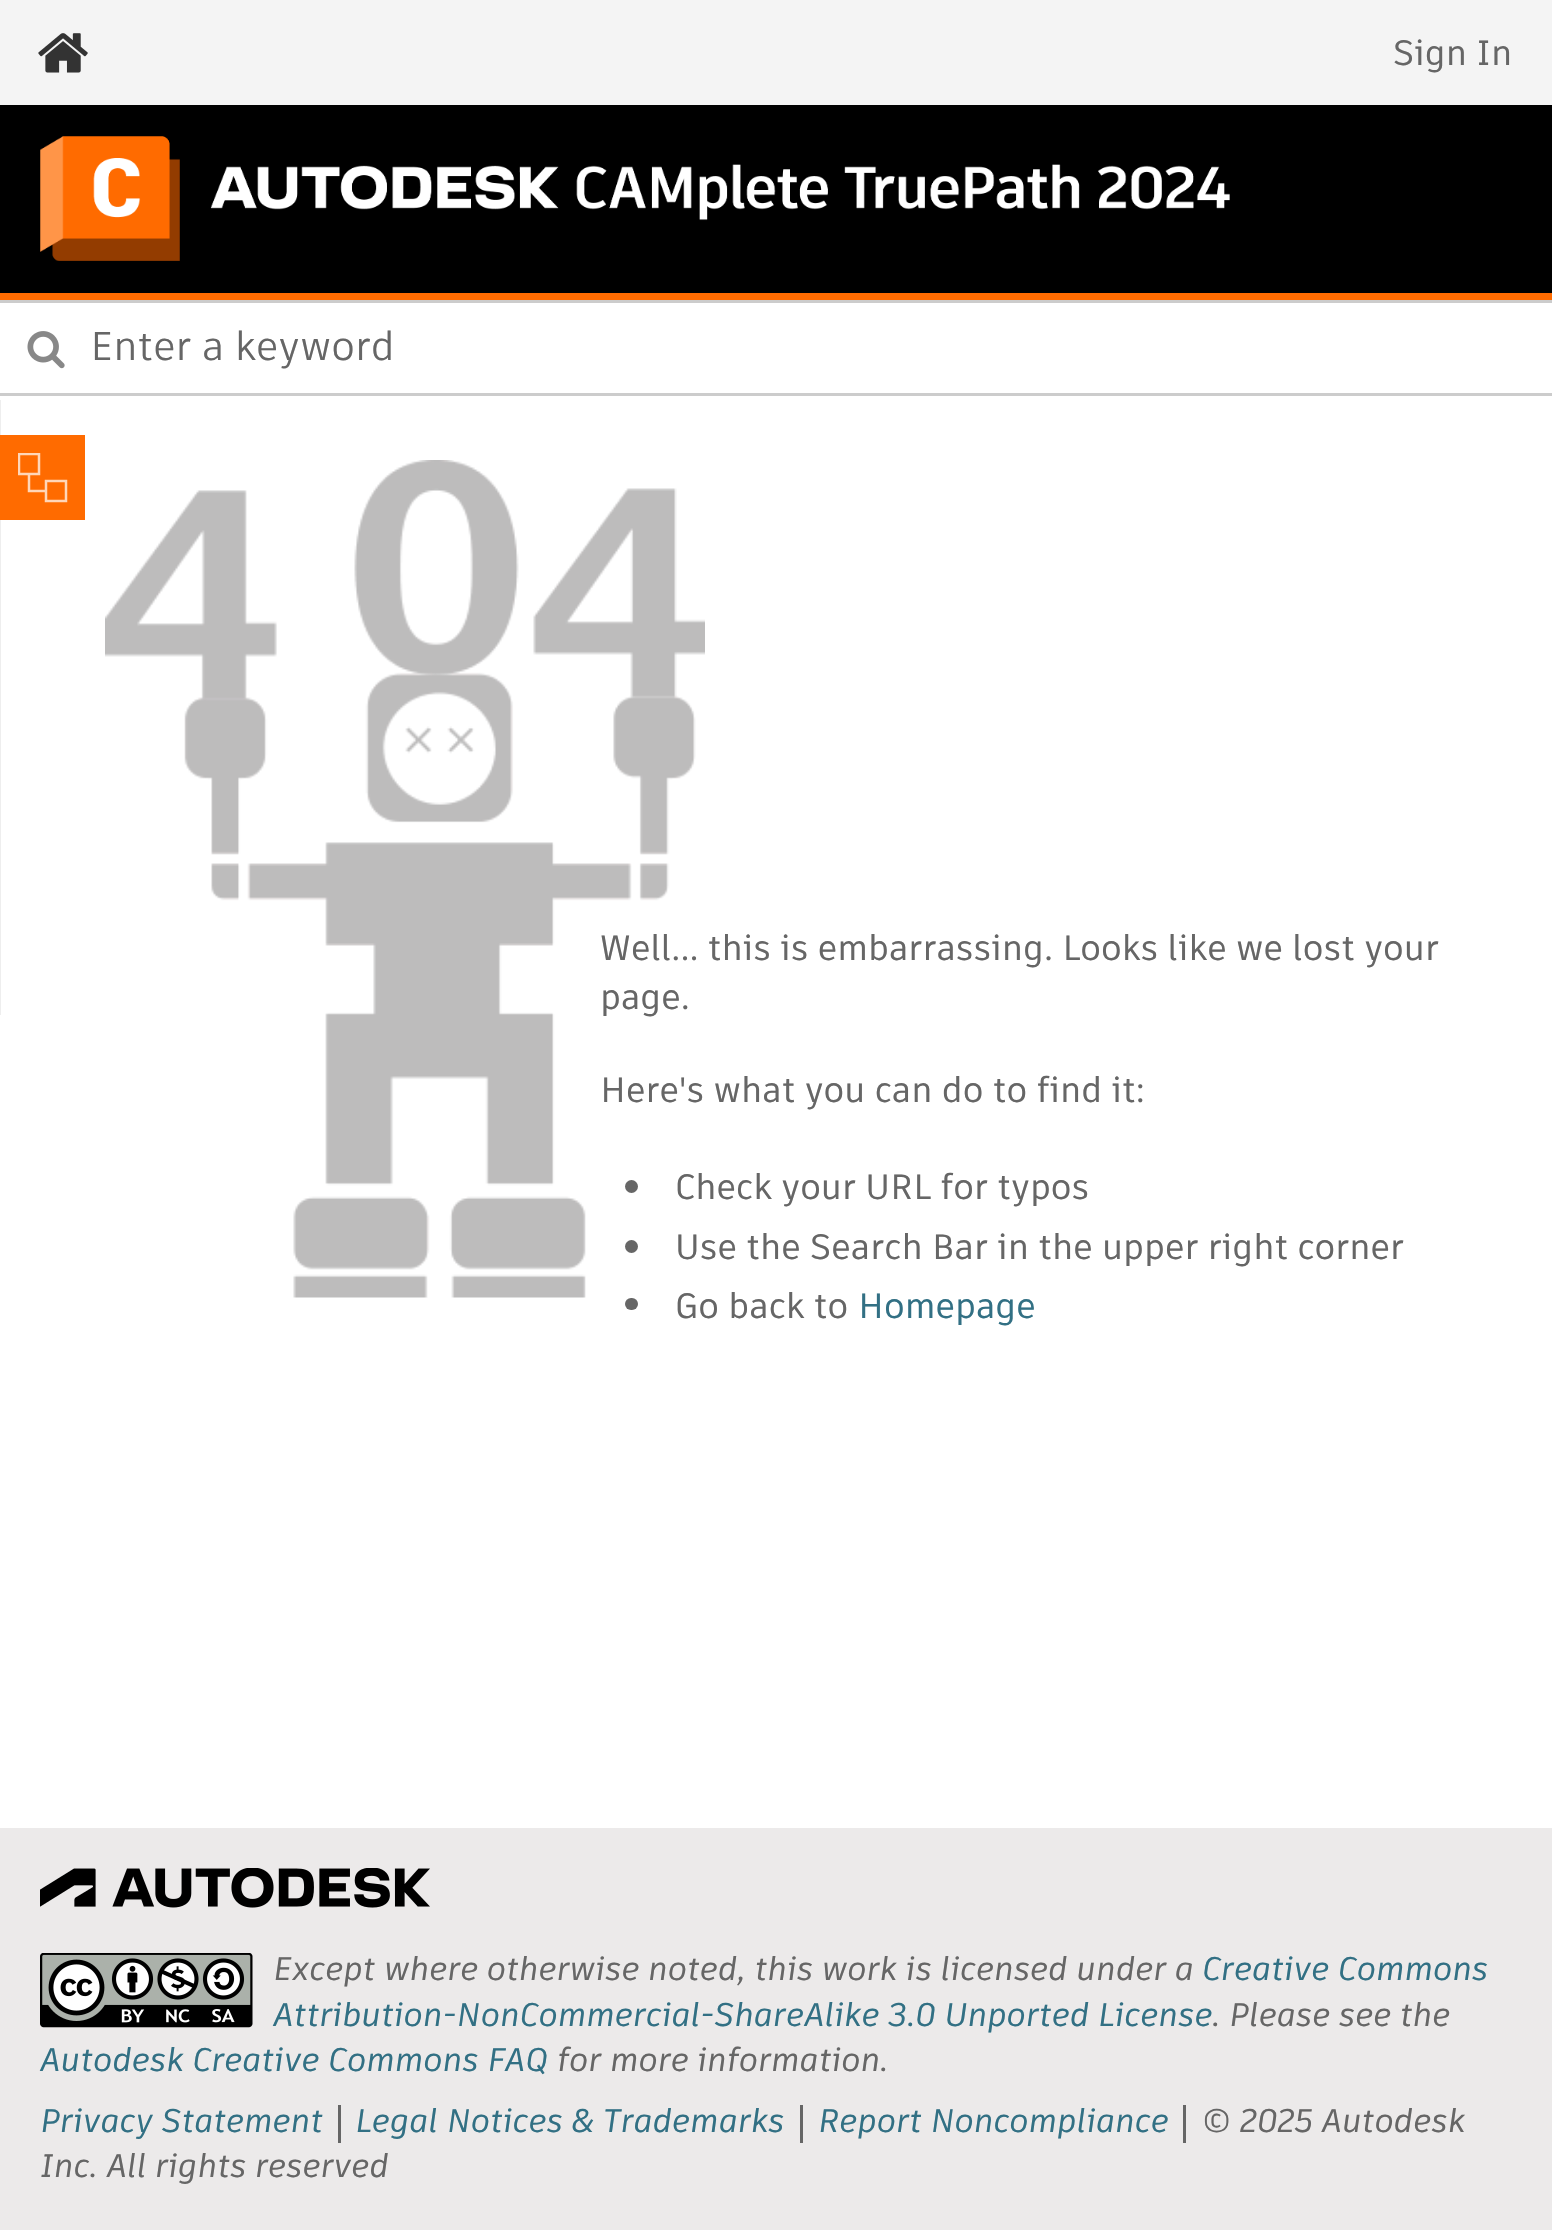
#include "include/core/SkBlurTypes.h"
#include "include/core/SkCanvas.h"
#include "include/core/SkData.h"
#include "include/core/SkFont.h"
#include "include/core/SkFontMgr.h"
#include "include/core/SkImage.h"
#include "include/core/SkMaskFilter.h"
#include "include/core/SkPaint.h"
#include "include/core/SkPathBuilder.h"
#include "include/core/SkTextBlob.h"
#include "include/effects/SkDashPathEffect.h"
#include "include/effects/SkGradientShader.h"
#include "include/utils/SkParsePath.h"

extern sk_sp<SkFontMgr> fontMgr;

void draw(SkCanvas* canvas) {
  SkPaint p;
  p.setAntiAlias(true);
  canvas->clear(SK_ColorWHITE);
  p.setColor(SkColorSetRGB(244, 244, 244));
  canvas->drawRect(SkRect::MakeLTRB(0, 0, 1552, 105), p);
  canvas->drawImageRect(SkImages::DeferredFromEncodedData(SkData::MakeFromFileName("images/1.png")), SkRect::MakeLTRB(38, 33, 88, 73), SkSamplingOptions());
  p.setColor(SK_ColorBLACK);
  canvas->drawRect(SkRect::MakeLTRB(0, 105, 1552, 293), p);
  p.setColor(SkColorSetRGB(255, 107, 0));
  canvas->drawRect(SkRect::MakeLTRB(0, 293, 1552, 300), p);
  canvas->drawImageRect(SkImages::DeferredFromEncodedData(SkData::MakeFromFileName("images/2.png")), SkRect::MakeLTRB(40, 136, 1230, 261), SkSamplingOptions());
  canvas->drawImageRect(SkImages::DeferredFromEncodedData(SkData::MakeFromFileName("images/3.png")), SkRect::MakeLTRB(27, 331, 65, 369), SkSamplingOptions());
  p.setColor(SkColorSetRGB(204, 204, 204));
  canvas->drawRect(SkRect::MakeLTRB(0, 300, 1552, 303), p);
  canvas->drawRect(SkRect::MakeLTRB(0, 393, 1552, 396), p);
  p.setColor(SkColorSetRGB(238, 238, 238));
  canvas->drawRect(SkRect::MakeLTRB(0, 400, 1, 1015), p);
  p.setColor(SkColorSetRGB(255, 107, 0));
  canvas->drawRect(SkRect::MakeLTRB(0, 435, 85, 520), p);
  canvas->save();
  canvas->clipRect(SkRect::MakeLTRB(18, 453, 68, 503));
  p.setStyle(SkPaint::kStroke_Style);
  p.setStrokeWidth(2.5f);
  p.setColor(SkColorSetRGB(255, 214, 184));
  canvas->drawPath(SkPathBuilder().moveTo(29, 474).lineTo(19, 474).lineTo(19, 454).lineTo(39, 454).lineTo(39, 474).lineTo(29, 474).lineTo(29, 491).lineTo(46, 491).lineTo(46, 501).lineTo(66, 501).lineTo(66, 481).lineTo(46, 481).lineTo(46, 491).detach(), p);
  canvas->restore();
  canvas->drawImageRect(SkImages::DeferredFromEncodedData(SkData::MakeFromFileName("images/4.png")), SkRect::MakeLTRB(105, 460, 705, 1298), SkSamplingOptions());
  p.setStyle(SkPaint::kFill_Style);
  p.setColor(SkColorSetRGB(102, 102, 102));
  canvas->drawCircle(631.5f, 1186.5f, 6.5f, p);
  canvas->drawCircle(631.5f, 1246.5f, 6.5f, p);
  canvas->drawRoundRect(SkRect::MakeLTRB(625, 1298, 638, 1310), 6, 6, p);
  p.setColor(SkColorSetRGB(236, 234, 234));
  canvas->drawRect(SkRect::MakeLTRB(0, 1828, 1552, 2230), p);
  canvas->drawImageRect(SkImages::DeferredFromEncodedData(SkData::MakeFromFileName("images/5.png")), SkRect::MakeLTRB(40, 1868, 430, 1908), SkSamplingOptions());
  canvas->drawImageRect(SkImages::DeferredFromEncodedData(SkData::MakeFromFileName("images/6.png")), SkRect::MakeLTRB(40, 1953, 253, 2028), SkSamplingOptions());
  p.setColor(SkColorSetRGB(102, 102, 102));
  canvas->drawRect(SkRect::MakeLTRB(338, 2105, 341, 2143), p);
  canvas->drawRect(SkRect::MakeLTRB(800, 2105, 803, 2143), p);
  canvas->drawRect(SkRect::MakeLTRB(1183, 2105, 1186, 2143), p);
  SkFont font1(fontMgr->matchFamilyStyle("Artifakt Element", SkFontStyle(500, SkFontStyle::kNormal_Width, SkFontStyle::kUpright_Slant)), 35);
  font1.setSubpixel(true);
  canvas->drawString("Sign In", 1393, 65, font1, p);
  SkFont font2(fontMgr->matchFamilyStyle("Artifakt Element", SkFontStyle::Normal()), 40);
  font2.setSubpixel(true);
  canvas->drawString("Enter a keyword", 90, 360, font2, p);
  canvas->drawString("Well... this is embarrassing. Looks like we lost your", 600, 960, font1, p);
  canvas->drawString("page.", 600, 1009, font1, p);
  canvas->drawString("Here's what you can do to find it:", 600, 1102, font1, p);
  canvas->drawString("Check your URL for typos", 675, 1199, font1, p);
  canvas->drawString("Use the Search Bar in the upper right corner", 675, 1259, font1, p);
  canvas->drawString("Go back to", 675, 1318, font1, p);
  p.setColor(SkColorSetRGB(50, 112, 132));
  canvas->drawString("Homepage", 858, 1318, font1, p);
  SkFont font3(fontMgr->matchFamilyStyle("Artifakt Element", SkFontStyle(500, SkFontStyle::kNormal_Width, SkFontStyle::kItalic_Slant)), 32.5f);
  font3.setSubpixel(true);
  p.setColor(SkColorSetRGB(102, 102, 102));
  canvas->drawString("Except where otherwise noted, this work is licensed under a", 273, 1980, font3, p);
  p.setColor(SkColorSetRGB(50, 112, 132));
  canvas->drawString("Creative Commons", 1202, 1980, font3, p);
  canvas->drawString("Attribution-NonCommercial-ShareAlike 3.0 Unported License", 273, 2026, font3, p);
  p.setColor(SkColorSetRGB(102, 102, 102));
  canvas->drawString(". Please see the", 1212, 2026, font3, p);
  p.setColor(SkColorSetRGB(50, 112, 132));
  canvas->drawString("Autodesk Creative Commons FAQ", 40, 2071, font3, p);
  p.setColor(SkColorSetRGB(102, 102, 102));
  canvas->drawString("for more information.", 557, 2071, font3, p);
  p.setColor(SkColorSetRGB(50, 112, 132));
  canvas->drawString("Privacy Statement", 40, 2132, font3, p);
  canvas->drawString("Legal Notices & Trademarks", 355, 2132, font3, p);
  canvas->drawString("Report Noncompliance", 818, 2132, font3, p);
  p.setColor(SkColorSetRGB(102, 102, 102));
  canvas->drawString("© 2025 Autodesk", 1201, 2132, font3, p);
  canvas->drawString("Inc. All rights reserved", 40, 2177, font3, p);
}
